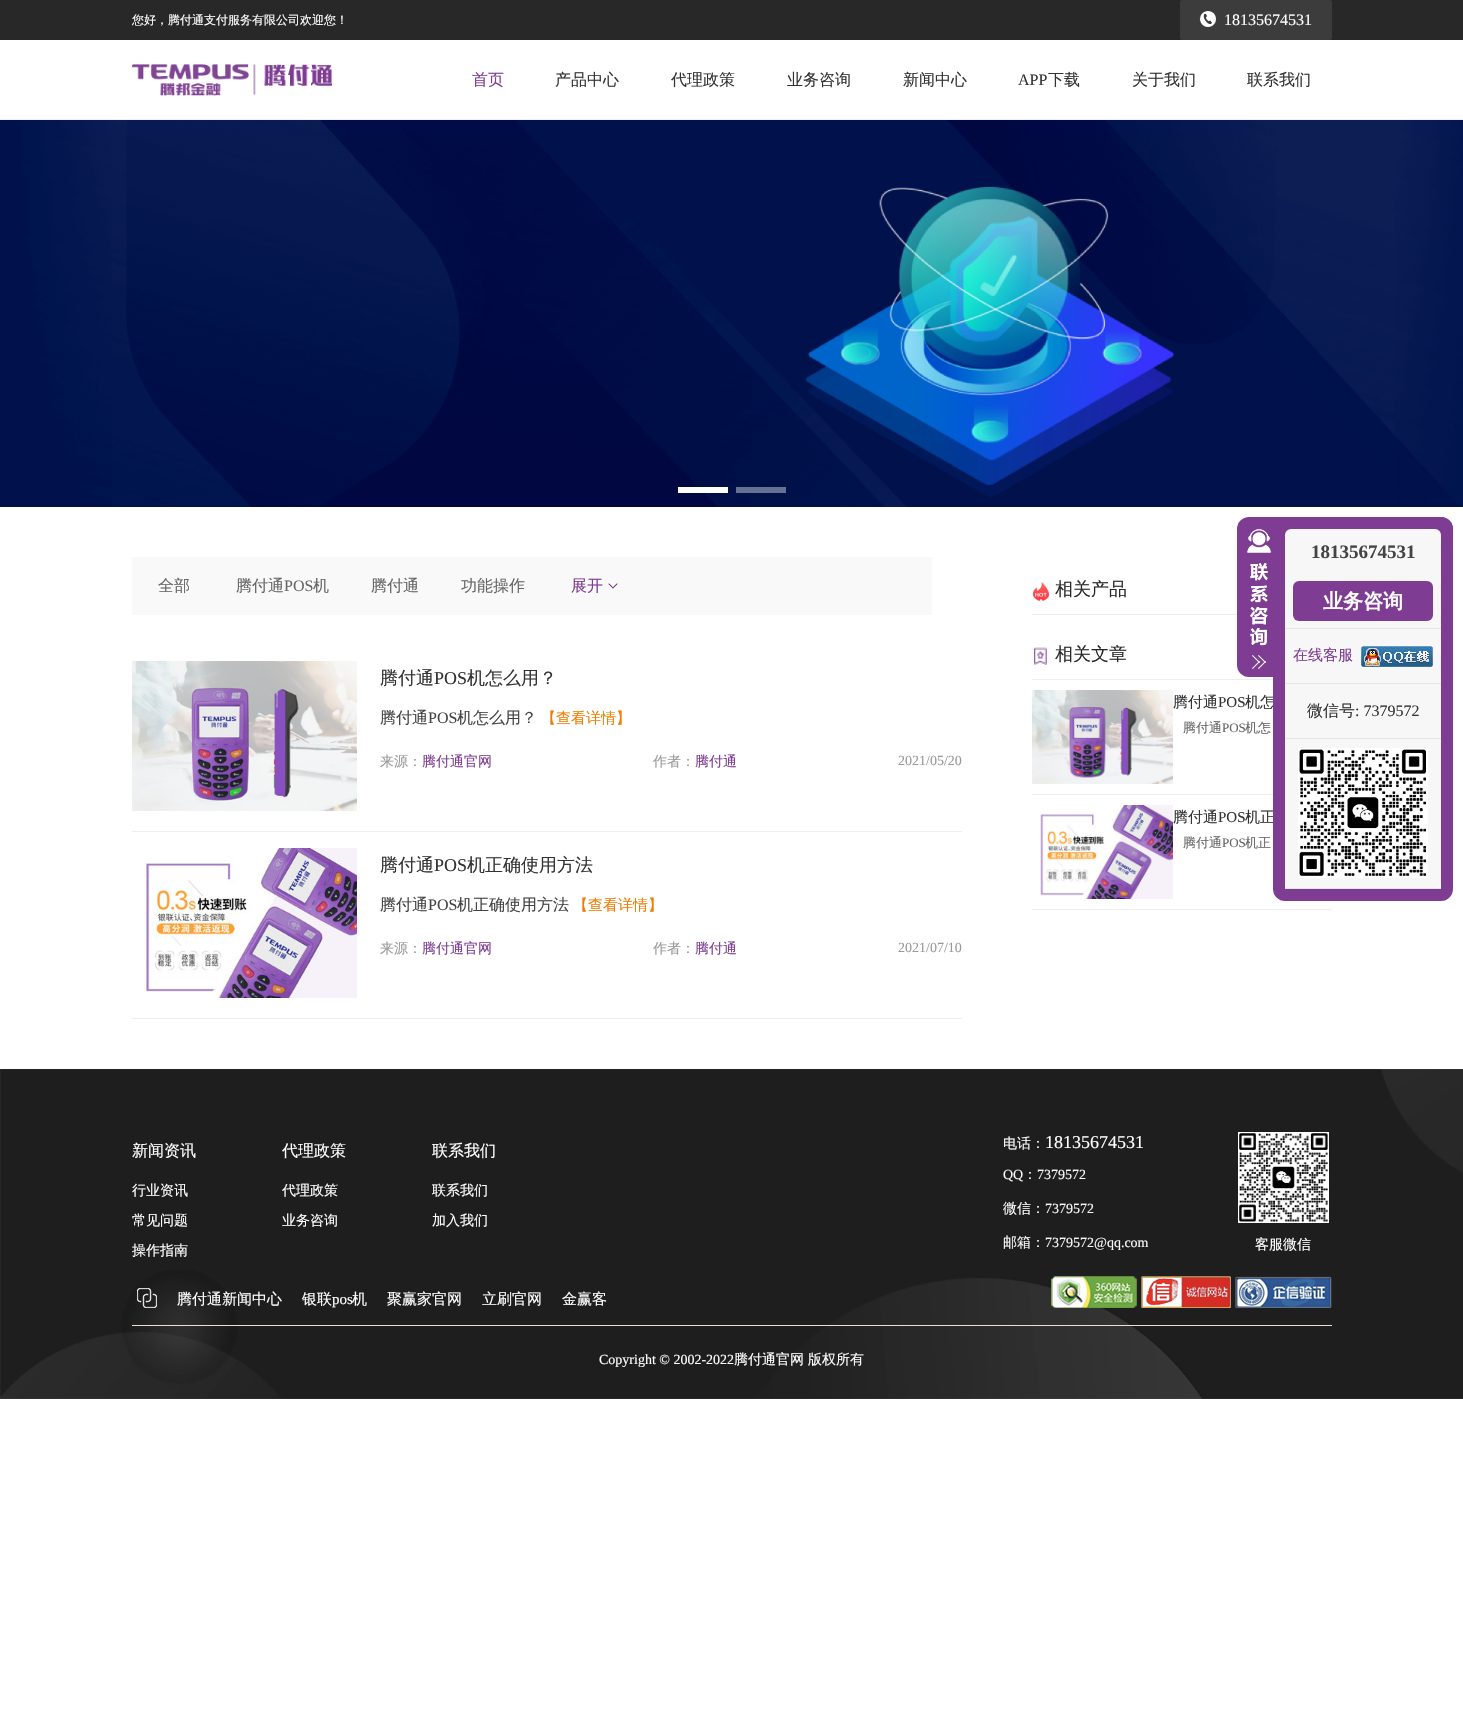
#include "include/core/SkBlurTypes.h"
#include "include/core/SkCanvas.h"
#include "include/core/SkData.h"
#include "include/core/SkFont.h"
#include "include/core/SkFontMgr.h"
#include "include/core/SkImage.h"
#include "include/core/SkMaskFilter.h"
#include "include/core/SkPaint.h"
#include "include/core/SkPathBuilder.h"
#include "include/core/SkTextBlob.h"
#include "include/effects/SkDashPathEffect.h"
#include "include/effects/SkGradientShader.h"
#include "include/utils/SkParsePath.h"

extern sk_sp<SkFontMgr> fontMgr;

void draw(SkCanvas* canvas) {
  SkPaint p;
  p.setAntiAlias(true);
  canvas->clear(SK_ColorWHITE);
  p.setColor(SkColorSetRGB(239, 239, 239));
  canvas->drawRect(SkRect::MakeLTRB(0, 119, 1463, 120), p);
  p.setColor(SkColorSetRGB(40, 40, 40));
  canvas->drawRect(SkRect::MakeLTRB(0, 0, 1463, 40), p);
  p.setColor(SkColorSetRGB(60, 60, 60));
  canvas->drawRoundRect(SkRect::MakeLTRB(1180, 0, 1332, 40), 3, 3, p);
  canvas->drawImageRect(SkImages::DeferredFromEncodedData(SkData::MakeFromFileName("images/1.png")), SkRect::MakeLTRB(1199, 11, 1216, 27), SkSamplingOptions());
  canvas->drawImageRect(SkImages::DeferredFromEncodedData(SkData::MakeFromFileName("images/2.png")), SkRect::MakeLTRB(132, 64, 332, 96), SkSamplingOptions());
  canvas->drawImageRect(SkImages::DeferredFromEncodedData(SkData::MakeFromFileName("images/3.png")), SkRect::MakeLTRB(0, 120, 1463, 507), SkSamplingOptions());
  p.setColor(SK_ColorWHITE);
  canvas->drawRect(SkRect::MakeLTRB(678, 487, 728, 493), p);
  p.setColor(SkColorSetRGB(102, 112, 146));
  canvas->drawRect(SkRect::MakeLTRB(736, 487, 786, 493), p);
  p.setColor(SkColorSetRGB(249, 249, 249));
  canvas->drawRect(SkRect::MakeLTRB(132, 557, 932, 615), p);
  canvas->drawImageRect(SkImages::DeferredFromEncodedData(SkData::MakeFromFileName("images/4.png")), SkRect::MakeLTRB(608, 583, 618, 589), SkSamplingOptions());
  p.setColor(SkColorSetRGB(238, 238, 238));
  canvas->drawRect(SkRect::MakeLTRB(132, 831, 962, 832), p);
  canvas->drawImageRect(SkImages::DeferredFromEncodedData(SkData::MakeFromFileName("images/5.png")), SkRect::MakeLTRB(132, 661, 357, 811), SkSamplingOptions());
  canvas->drawRect(SkRect::MakeLTRB(132, 1018, 962, 1019), p);
  canvas->drawImageRect(SkImages::DeferredFromEncodedData(SkData::MakeFromFileName("images/6.png")), SkRect::MakeLTRB(144, 848, 357, 998), SkSamplingOptions());
  canvas->drawRect(SkRect::MakeLTRB(1032, 614, 1237, 615), p);
  canvas->drawImageRect(SkImages::DeferredFromEncodedData(SkData::MakeFromFileName("images/7.png")), SkRect::MakeLTRB(1033, 582, 1049, 601), SkSamplingOptions());
  canvas->drawRect(SkRect::MakeLTRB(1032, 679, 1273, 680), p);
  canvas->drawImageRect(SkImages::DeferredFromEncodedData(SkData::MakeFromFileName("images/8.png")), SkRect::MakeLTRB(1034, 647, 1047, 665), SkSamplingOptions());
  canvas->drawRect(SkRect::MakeLTRB(1032, 794, 1273, 795), p);
  canvas->drawImageRect(SkImages::DeferredFromEncodedData(SkData::MakeFromFileName("images/9.png")), SkRect::MakeLTRB(1032, 690, 1173, 784), SkSamplingOptions());
  canvas->drawRect(SkRect::MakeLTRB(1032, 909, 1332, 910), p);
  canvas->drawImageRect(SkImages::DeferredFromEncodedData(SkData::MakeFromFileName("images/10.png")), SkRect::MakeLTRB(1040, 805, 1173, 899), SkSamplingOptions());
  p.setColor(SkColorSetRGB(126, 60, 147));
  canvas->drawRoundRect(SkRect::MakeLTRB(1237, 517, 1453, 677), 12, 12, p);
  canvas->drawImageRect(SkImages::DeferredFromEncodedData(SkData::MakeFromFileName("images/11.png")), SkRect::MakeLTRB(1247, 529, 1271, 669), SkSamplingOptions());
  canvas->drawImageRect(SkImages::DeferredFromEncodedData(SkData::MakeFromFileName("images/14.png")), SkRect::MakeLTRB(0, 1069, 1463, 1399), SkSamplingOptions());
  p.setColor(SkColorSetRGB(235, 224, 206));
  canvas->drawRect(SkRect::MakeLTRB(132, 1325, 1332, 1326), p);
  canvas->drawImageRect(SkImages::DeferredFromEncodedData(SkData::MakeFromFileName("images/15.png")), SkRect::MakeLTRB(137, 1288, 157, 1308), SkSamplingOptions());
  p.setColor(SK_ColorWHITE);
  canvas->drawRect(SkRect::MakeLTRB(1238, 1132, 1239, 1223), p);
  canvas->drawImageRect(SkImages::DeferredFromEncodedData(SkData::MakeFromFileName("images/16.png")), SkRect::MakeLTRB(1239, 1132, 1329, 1223), SkSamplingOptions());
  canvas->drawImageRect(SkImages::DeferredFromEncodedData(SkData::MakeFromFileName("images/17.png")), SkRect::MakeLTRB(1051, 1276, 1137, 1308), SkSamplingOptions());
  canvas->drawImageRect(SkImages::DeferredFromEncodedData(SkData::MakeFromFileName("images/18.png")), SkRect::MakeLTRB(1141, 1276, 1231, 1308), SkSamplingOptions());
  canvas->drawImageRect(SkImages::DeferredFromEncodedData(SkData::MakeFromFileName("images/19.png")), SkRect::MakeLTRB(1235, 1276, 1332, 1308), SkSamplingOptions());
  SkFont font1(fontMgr->matchFamilyStyle("WenQuanYi Zen Hei", SkFontStyle(500, SkFontStyle::kNormal_Width, SkFontStyle::kUpright_Slant)), 12);
  font1.setSubpixel(true);
  canvas->drawString("您好，腾付通支付服务有限公司欢迎您！", 132, 24, font1, p);
  SkFont font2(fontMgr->matchFamilyStyle("Liberation Serif", SkFontStyle::Normal()), 16);
  font2.setSubpixel(true);
  canvas->drawString("18135674531", 1224, 25, font2, p);
  SkFont font3(fontMgr->matchFamilyStyle("WenQuanYi Zen Hei", SkFontStyle(500, SkFontStyle::kNormal_Width, SkFontStyle::kUpright_Slant)), 16);
  font3.setSubpixel(true);
  p.setColor(SkColorSetRGB(126, 60, 147));
  canvas->drawString("首页", 472, 85, font3, p);
  p.setColor(SkColorSetRGB(51, 51, 51));
  canvas->drawString("产品中心", 555, 85, font3, p);
  canvas->drawString("代理政策", 671, 85, font3, p);
  canvas->drawString("业务咨询", 787, 85, font3, p);
  canvas->drawString("新闻中心", 903, 85, font3, p);
  canvas->drawString("APP", 1018, 85, font2, p);
  canvas->drawString("下载", 1048, 85, font3, p);
  canvas->drawString("关于我们", 1132, 85, font3, p);
  canvas->drawString("联系我们", 1247, 85, font3, p);
  p.setColor(SkColorSetRGB(102, 102, 102));
  canvas->drawString("全部", 158, 591, font3, p);
  canvas->drawString("腾付通", 236, 591, font3, p);
  canvas->drawString("POS", 284, 591, font2, p);
  canvas->drawString("机", 313, 591, font3, p);
  canvas->drawString("腾付通", 371, 591, font3, p);
  canvas->drawString("功能操作", 461, 591, font3, p);
  p.setColor(SkColorSetRGB(126, 60, 147));
  canvas->drawString("展开", 571, 591, font3, p);
  SkFont font4(fontMgr->matchFamilyStyle("WenQuanYi Zen Hei", SkFontStyle(500, SkFontStyle::kNormal_Width, SkFontStyle::kUpright_Slant)), 18);
  font4.setSubpixel(true);
  p.setColor(SkColorSetRGB(51, 51, 51));
  canvas->drawString("腾付通", 380, 684, font4, p);
  SkFont font5(fontMgr->matchFamilyStyle("Liberation Serif", SkFontStyle::Normal()), 18);
  font5.setSubpixel(true);
  canvas->drawString("POS", 434, 684, font5, p);
  canvas->drawString("机怎么用？", 467, 684, font4, p);
  p.setColor(SkColorSetRGB(68, 68, 68));
  canvas->drawString("腾付通", 380, 723, font3, p);
  canvas->drawString("POS", 428, 723, font2, p);
  canvas->drawString("机怎么用？", 457, 723, font3, p);
  SkFont font6(fontMgr->matchFamilyStyle("WenQuanYi Zen Hei", SkFontStyle(500, SkFontStyle::kNormal_Width, SkFontStyle::kUpright_Slant)), 15);
  font6.setSubpixel(true);
  p.setColor(SkColorSetRGB(238, 126, 5));
  canvas->drawString("【查看详情】", 541, 723, font6, p);
  SkFont font7(fontMgr->matchFamilyStyle("WenQuanYi Zen Hei", SkFontStyle(500, SkFontStyle::kNormal_Width, SkFontStyle::kUpright_Slant)), 14);
  font7.setSubpixel(true);
  p.setColor(SkColorSetRGB(153, 153, 153));
  canvas->drawString("来源：", 380, 766, font7, p);
  p.setColor(SkColorSetRGB(126, 60, 147));
  canvas->drawString("腾付通官网", 422, 766, font7, p);
  p.setColor(SkColorSetRGB(153, 153, 153));
  canvas->drawString("作者：", 653, 766, font7, p);
  p.setColor(SkColorSetRGB(126, 60, 147));
  canvas->drawString("腾付通", 695, 766, font7, p);
  SkFont font8(fontMgr->matchFamilyStyle("Liberation Serif", SkFontStyle::Normal()), 14);
  font8.setSubpixel(true);
  p.setColor(SkColorSetRGB(153, 153, 153));
  canvas->drawString("2021/05/20", 898, 765, font8, p);
  p.setColor(SkColorSetRGB(51, 51, 51));
  canvas->drawString("腾付通", 380, 871, font4, p);
  canvas->drawString("POS", 434, 871, font5, p);
  canvas->drawString("机正确使用方法", 467, 871, font4, p);
  p.setColor(SkColorSetRGB(68, 68, 68));
  canvas->drawString("腾付通", 380, 910, font3, p);
  canvas->drawString("POS", 428, 910, font2, p);
  canvas->drawString("机正确使用方法", 457, 910, font3, p);
  p.setColor(SkColorSetRGB(238, 126, 5));
  canvas->drawString("【查看详情】", 573, 910, font6, p);
  p.setColor(SkColorSetRGB(153, 153, 153));
  canvas->drawString("来源：", 380, 953, font7, p);
  p.setColor(SkColorSetRGB(126, 60, 147));
  canvas->drawString("腾付通官网", 422, 953, font7, p);
  p.setColor(SkColorSetRGB(153, 153, 153));
  canvas->drawString("作者：", 653, 953, font7, p);
  p.setColor(SkColorSetRGB(126, 60, 147));
  canvas->drawString("腾付通", 695, 953, font7, p);
  p.setColor(SkColorSetRGB(153, 153, 153));
  canvas->drawString("2021/07/10", 898, 952, font8, p);
  p.setColor(SkColorSetRGB(40, 40, 40));
  canvas->drawString("相关产品", 1055, 595, font4, p);
  canvas->drawString("相关文章", 1055, 660, font4, p);
  p.setColor(SkColorSetRGB(51, 51, 51));
  canvas->drawString("腾付通", 1173, 707, font6, p);
  SkFont font9(fontMgr->matchFamilyStyle("Liberation Serif", SkFontStyle::Normal()), 15);
  font9.setSubpixel(true);
  canvas->drawString("POS", 1218, 707, font9, p);
  canvas->drawString("机怎", 1245, 707, font6, p);
  SkFont font10(fontMgr->matchFamilyStyle("WenQuanYi Zen Hei", SkFontStyle(500, SkFontStyle::kNormal_Width, SkFontStyle::kUpright_Slant)), 13);
  font10.setSubpixel(true);
  p.setColor(SkColorSetRGB(102, 102, 102));
  canvas->drawString("腾付通", 1183, 732, font10, p);
  SkFont font11(fontMgr->matchFamilyStyle("Liberation Serif", SkFontStyle::Normal()), 13);
  font11.setSubpixel(true);
  canvas->drawString("POS", 1222, 732, font11, p);
  canvas->drawString("机怎", 1245, 732, font10, p);
  p.setColor(SkColorSetRGB(51, 51, 51));
  canvas->drawString("腾付通", 1173, 822, font6, p);
  canvas->drawString("POS", 1218, 822, font9, p);
  canvas->drawString("机正", 1245, 822, font6, p);
  p.setColor(SkColorSetRGB(102, 102, 102));
  canvas->drawString("腾付通", 1183, 847, font10, p);
  canvas->drawString("POS", 1222, 847, font11, p);
  canvas->drawString("机正", 1245, 847, font10, p);
  p.setStyle(SkPaint::kStroke_Style);
  p.setStrokeWidth(12);
  p.setColor(SkColorSetRGB(126, 60, 147));
  canvas->drawRoundRect(SkRect::MakeLTRB(1279, 523, 1447, 895), 6, 6, p);
  p.setStyle(SkPaint::kFill_Style);
  p.setColor(SkColorSetRGB(247, 247, 247));
  canvas->drawRoundRect(SkRect::MakeLTRB(1285, 529, 1441, 889), 6, 6, p);
  SkFont font12(fontMgr->matchFamilyStyle("Liberation Serif", SkFontStyle::Bold()), 19);
  font12.setSubpixel(true);
  p.setColor(SkColorSetRGB(68, 68, 68));
  canvas->drawString("18135674531", 1311, 558, font12, p);
  p.setColor(SkColorSetRGB(230, 228, 228));
  canvas->drawRect(SkRect::MakeLTRB(1285, 628, 1441, 629), p);
  p.setColor(SkColorSetRGB(126, 60, 147));
  canvas->drawRoundRect(SkRect::MakeLTRB(1293, 581, 1433, 621), 6, 6, p);
  SkFont font13(fontMgr->matchFamilyStyle("WenQuanYi Zen Hei", SkFontStyle::Bold()), 20);
  font13.setSubpixel(true);
  p.setColor(SK_ColorWHITE);
  canvas->drawString("业务咨询", 1323, 608, font13, p);
  p.setColor(SkColorSetRGB(230, 228, 228));
  canvas->drawRect(SkRect::MakeLTRB(1285, 683, 1441, 684), p);
  canvas->drawImageRect(SkImages::DeferredFromEncodedData(SkData::MakeFromFileName("images/12.png")), SkRect::MakeLTRB(1361, 646, 1433, 667), SkSamplingOptions());
  p.setColor(SkColorSetRGB(126, 60, 147));
  canvas->drawString("在线客服", 1293, 660, font6, p);
  p.setColor(SkColorSetRGB(230, 228, 228));
  canvas->drawRect(SkRect::MakeLTRB(1285, 738, 1441, 739), p);
  p.setColor(SkColorSetRGB(51, 51, 51));
  canvas->drawString("微信号", 1307, 716, font3, p);
  canvas->drawString(": 7379572", 1355, 716, font2, p);
  p.setColor(SkColorSetRGB(230, 228, 228));
  canvas->drawRect(SkRect::MakeLTRB(1285, 888, 1441, 889), p);
  canvas->drawImageRect(SkImages::DeferredFromEncodedData(SkData::MakeFromFileName("images/13.png")), SkRect::MakeLTRB(1298, 748, 1428, 878), SkSamplingOptions());
  p.setColor(SK_ColorWHITE);
  canvas->drawString("新闻资讯", 132, 1156, font3, p);
  canvas->drawString("行业资讯", 132, 1195, font7, p);
  canvas->drawString("常见问题", 132, 1225, font7, p);
  canvas->drawString("操作指南", 132, 1255, font7, p);
  canvas->drawString("代理政策", 282, 1156, font3, p);
  canvas->drawString("代理政策", 282, 1195, font7, p);
  canvas->drawString("业务咨询", 282, 1225, font7, p);
  canvas->drawString("联系我们", 432, 1156, font3, p);
  canvas->drawString("联系我们", 432, 1195, font7, p);
  canvas->drawString("加入我们", 432, 1225, font7, p);
  canvas->drawString("腾付通新闻中心", 177, 1304, font6, p);
  canvas->drawString("银联", 302, 1304, font6, p);
  canvas->drawString("pos", 332, 1304, font9, p);
  canvas->drawString("机", 352, 1304, font6, p);
  canvas->drawString("聚赢家官网", 387, 1304, font6, p);
  canvas->drawString("立刷官网", 482, 1304, font6, p);
  canvas->drawString("金赢客", 562, 1304, font6, p);
  p.setColor(SkColorSetRGB(249, 249, 249));
  canvas->drawString("电话：", 1003, 1148, font7, p);
  p.setColor(SK_ColorWHITE);
  canvas->drawString("18135674531", 1045, 1148, font5, p);
  p.setColor(SkColorSetRGB(249, 249, 249));
  canvas->drawString("QQ", 1003, 1179, font8, p);
  canvas->drawString("：", 1023, 1179, font7, p);
  canvas->drawString("7379572", 1037, 1179, font8, p);
  canvas->drawString("微信：", 1003, 1213, font7, p);
  canvas->drawString("7379572", 1045, 1213, font8, p);
  canvas->drawString("邮箱：", 1003, 1247, font7, p);
  canvas->drawString("7379572@qq.com", 1045, 1247, font8, p);
  p.setColor(SK_ColorWHITE);
  canvas->drawString("客服微信", 1255, 1249, font7, p);
  canvas->drawString("Copyright © 2002-2022", 599, 1364, font8, p);
  canvas->drawString("腾付通官网", 734, 1364, font7, p);
  canvas->drawString("版权所有", 808, 1364, font7, p);
}
